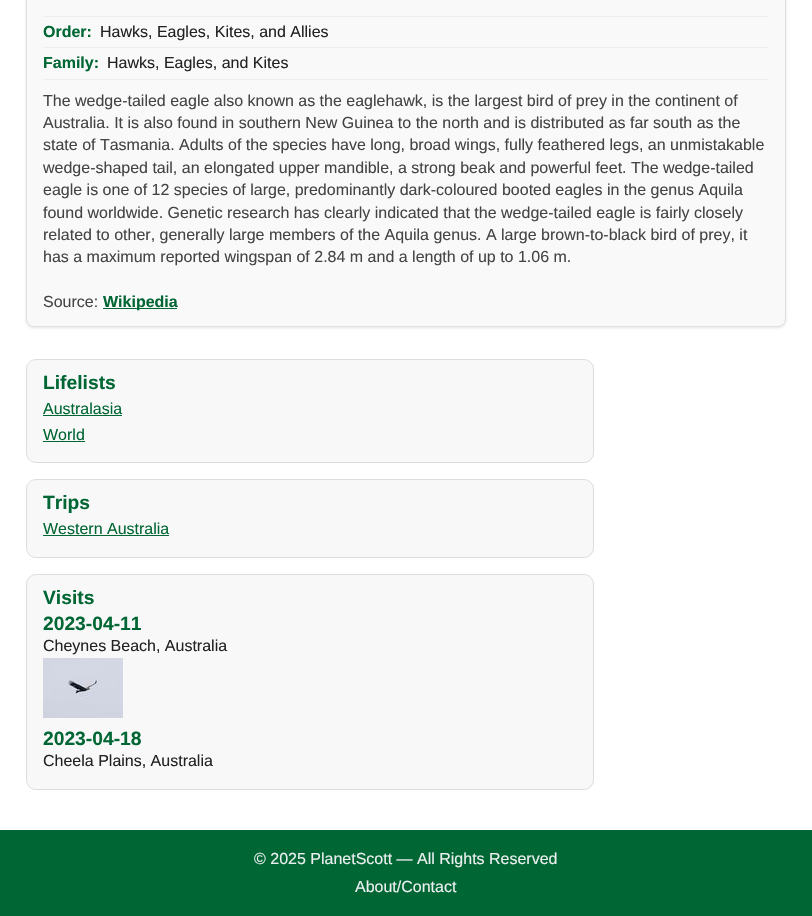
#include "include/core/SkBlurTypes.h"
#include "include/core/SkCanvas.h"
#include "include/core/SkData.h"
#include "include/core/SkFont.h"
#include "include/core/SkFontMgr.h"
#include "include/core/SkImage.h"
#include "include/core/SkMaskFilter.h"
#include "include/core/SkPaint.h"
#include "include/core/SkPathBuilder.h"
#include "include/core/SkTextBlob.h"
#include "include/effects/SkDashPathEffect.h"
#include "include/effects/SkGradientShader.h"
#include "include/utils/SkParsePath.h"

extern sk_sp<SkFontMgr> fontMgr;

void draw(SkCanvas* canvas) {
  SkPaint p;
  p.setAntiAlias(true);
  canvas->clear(SK_ColorWHITE);
  p.setColor(SkColorSetARGB(26, 0, 0, 0));
  p.setMaskFilter(SkMaskFilter::MakeBlur(kNormal_SkBlurStyle, 1.5f));
  canvas->drawRoundRect(SkRect::MakeLTRB(26, -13, 786, 328), 8, 8, p);
  p.setMaskFilter(nullptr);
  p.setColor(SkColorSetRGB(249, 249, 249));
  canvas->drawRoundRect(SkRect::MakeLTRB(26.5f, -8.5f, 785.5f, 326.5f), 7.5f, 7.5f, p);
  p.setStyle(SkPaint::kStroke_Style);
  p.setStrokeWidth(1);
  p.setColor(SkColorSetRGB(224, 224, 224));
  canvas->drawRoundRect(SkRect::MakeLTRB(26.5f, -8.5f, 785.5f, 326.5f), 7.5f, 7.5f, p);
  p.setStyle(SkPaint::kFill_Style);
  p.setColor(SkColorSetRGB(238, 238, 238));
  canvas->drawRect(SkRect::MakeLTRB(43, 16, 769, 17), p);
  canvas->drawRect(SkRect::MakeLTRB(43, 47, 769, 48), p);
  canvas->drawRect(SkRect::MakeLTRB(43, 79, 769, 80), p);
  p.setColor(SkColorSetRGB(0, 102, 51));
  canvas->drawRect(SkRect::MakeLTRB(103, 308, 177, 309), p);
  p.setColor(SkColorSetRGB(248, 248, 248));
  canvas->drawRoundRect(SkRect::MakeLTRB(26.5f, 359.5f, 593.5f, 462.5f), 9.5f, 9.5f, p);
  p.setStyle(SkPaint::kStroke_Style);
  p.setColor(SkColorSetRGB(221, 221, 221));
  canvas->drawRoundRect(SkRect::MakeLTRB(26.5f, 359.5f, 593.5f, 462.5f), 9.5f, 9.5f, p);
  p.setStyle(SkPaint::kFill_Style);
  p.setColor(SkColorSetRGB(0, 102, 51));
  canvas->drawRect(SkRect::MakeLTRB(43, 415, 122, 416), p);
  canvas->drawRect(SkRect::MakeLTRB(43, 441, 85, 442), p);
  p.setColor(SkColorSetRGB(248, 248, 248));
  canvas->drawRoundRect(SkRect::MakeLTRB(26.5f, 479.5f, 593.5f, 557.5f), 9.5f, 9.5f, p);
  p.setStyle(SkPaint::kStroke_Style);
  p.setColor(SkColorSetRGB(221, 221, 221));
  canvas->drawRoundRect(SkRect::MakeLTRB(26.5f, 479.5f, 593.5f, 557.5f), 9.5f, 9.5f, p);
  p.setStyle(SkPaint::kFill_Style);
  p.setColor(SkColorSetRGB(0, 102, 51));
  canvas->drawRect(SkRect::MakeLTRB(43, 535, 169, 536), p);
  p.setColor(SkColorSetRGB(248, 248, 248));
  canvas->drawRoundRect(SkRect::MakeLTRB(26.5f, 574.5f, 593.5f, 789.5f), 9.5f, 9.5f, p);
  p.setStyle(SkPaint::kStroke_Style);
  p.setColor(SkColorSetRGB(221, 221, 221));
  canvas->drawRoundRect(SkRect::MakeLTRB(26.5f, 574.5f, 593.5f, 789.5f), 9.5f, 9.5f, p);
  canvas->drawImageRect(SkImages::DeferredFromEncodedData(SkData::MakeFromFileName("images/1.png")), SkRect::MakeLTRB(43, 658, 123, 718), SkSamplingOptions());
  p.setStyle(SkPaint::kFill_Style);
  p.setColor(SkColorSetRGB(0, 102, 51));
  canvas->drawRect(SkRect::MakeLTRB(0, 830, 812, 916), p);
  SkFont font1(fontMgr->matchFamilyStyle("Liberation Sans", SkFontStyle::Bold()), 16);
  font1.setSubpixel(true);
  canvas->drawString("Order:", 43, 37, font1, p);
  SkFont font2(fontMgr->matchFamilyStyle("Liberation Sans", SkFontStyle::Normal()), 16);
  font2.setSubpixel(true);
  p.setColor(SkColorSetRGB(34, 34, 34));
  canvas->drawString("Hawks, Eagles, Kites, and Allies", 100, 37, font2, p);
  p.setColor(SkColorSetRGB(0, 102, 51));
  canvas->drawString("Family:", 43, 68, font1, p);
  p.setColor(SkColorSetRGB(34, 34, 34));
  canvas->drawString("Hawks, Eagles, and Kites", 107, 68, font2, p);
  p.setColor(SkColorSetRGB(68, 68, 68));
  canvas->drawString("The wedge-tailed eagle also known as the eaglehawk, is the largest bird of prey in the continent of", 43, 106, font2, p);
  canvas->drawString("Australia. It is also found in southern New Guinea to the north and is distributed as far south as the", 43, 128, font2, p);
  canvas->drawString("state of Tasmania. Adults of the species have long, broad wings, fully feathered legs, an unmistakable", 43, 150, font2, p);
  canvas->drawString("wedge-shaped tail, an elongated upper mandible, a strong beak and powerful feet. The wedge-tailed", 43, 173, font2, p);
  canvas->drawString("eagle is one of 12 species of large, predominantly dark-coloured booted eagles in the genus Aquila", 43, 195, font2, p);
  canvas->drawString("found worldwide. Genetic research has clearly indicated that the wedge-tailed eagle is fairly closely", 43, 218, font2, p);
  canvas->drawString("related to other, generally large members of the Aquila genus. A large brown-to-black bird of prey, it", 43, 240, font2, p);
  canvas->drawString("has a maximum reported wingspan of 2.84 m and a length of up to 1.06 m.", 43, 262, font2, p);
  canvas->drawString("Source:", 43, 307, font2, p);
  p.setColor(SkColorSetRGB(0, 102, 51));
  canvas->drawString("Wikipedia", 103, 307, font1, p);
  SkFont font3(fontMgr->matchFamilyStyle("Liberation Sans", SkFontStyle::Bold()), 19.25f);
  font3.setSubpixel(true);
  canvas->drawString("Lifelists", 43, 389, font3, p);
  canvas->drawString("Australasia", 43, 414, font2, p);
  canvas->drawString("World", 43, 440, font2, p);
  canvas->drawString("Trips", 43, 509, font3, p);
  canvas->drawString("Western Australia", 43, 534, font2, p);
  canvas->drawString("Visits", 43, 604, font3, p);
  canvas->drawString("2023-04-11", 43, 630, font3, p);
  p.setColor(SkColorSetRGB(34, 34, 34));
  canvas->drawString("Cheynes Beach, Australia", 43, 651, font2, p);
  p.setColor(SkColorSetRGB(0, 102, 51));
  canvas->drawString("2023-04-18", 43, 745, font3, p);
  p.setColor(SkColorSetRGB(34, 34, 34));
  canvas->drawString("Cheela Plains, Australia", 43, 766, font2, p);
  p.setColor(SkColorSetRGB(236, 240, 241));
  canvas->drawString("© 2025 PlanetScott — All Rights Reserved", 254, 864, font2, p);
  canvas->drawString("About/Contact", 355, 892, font2, p);
}
